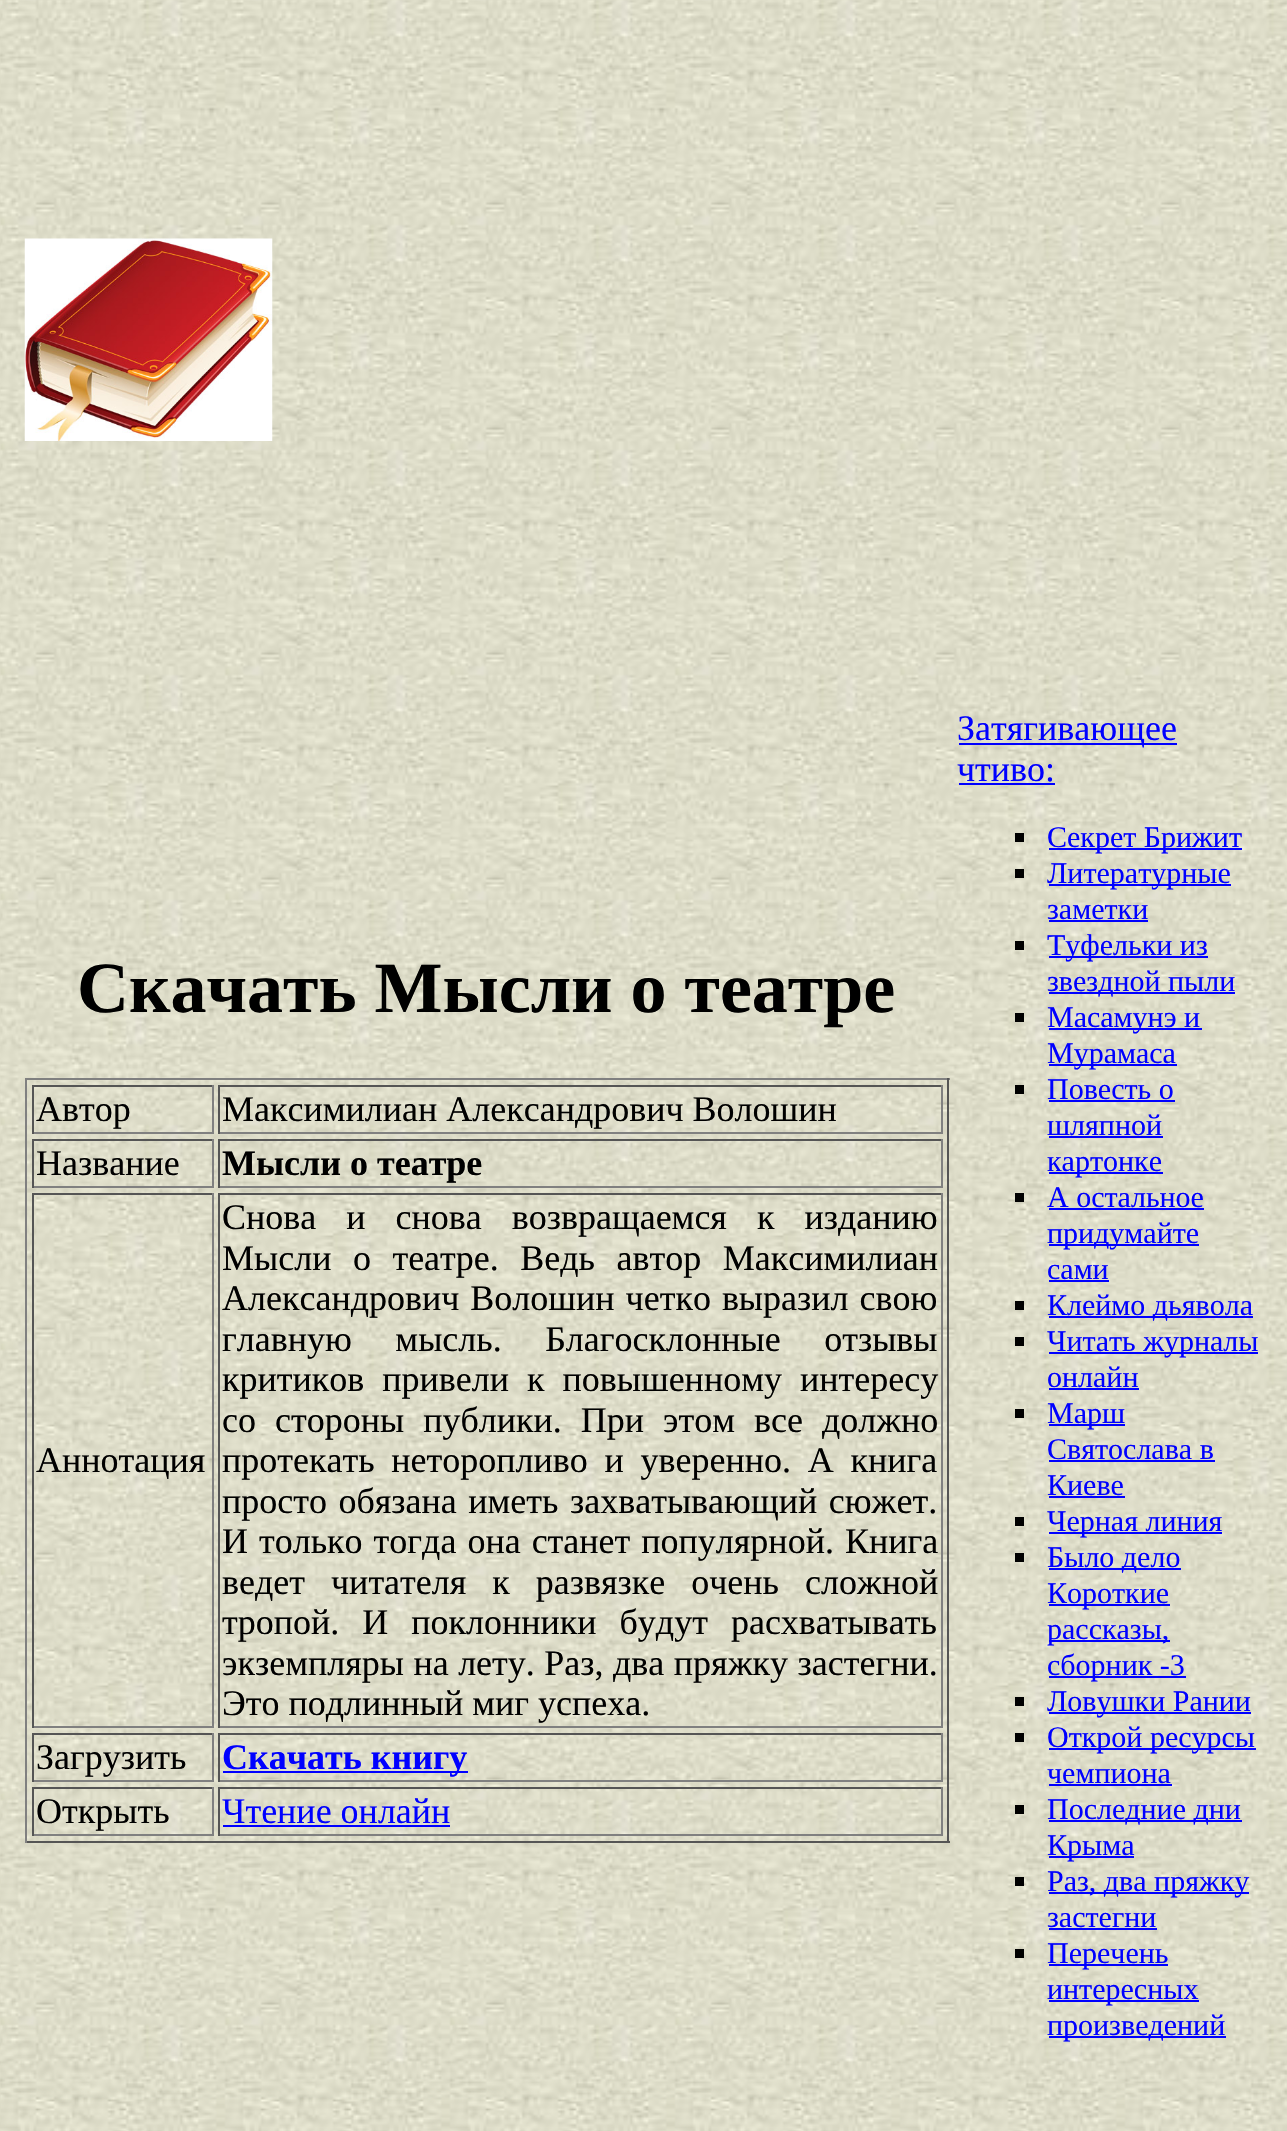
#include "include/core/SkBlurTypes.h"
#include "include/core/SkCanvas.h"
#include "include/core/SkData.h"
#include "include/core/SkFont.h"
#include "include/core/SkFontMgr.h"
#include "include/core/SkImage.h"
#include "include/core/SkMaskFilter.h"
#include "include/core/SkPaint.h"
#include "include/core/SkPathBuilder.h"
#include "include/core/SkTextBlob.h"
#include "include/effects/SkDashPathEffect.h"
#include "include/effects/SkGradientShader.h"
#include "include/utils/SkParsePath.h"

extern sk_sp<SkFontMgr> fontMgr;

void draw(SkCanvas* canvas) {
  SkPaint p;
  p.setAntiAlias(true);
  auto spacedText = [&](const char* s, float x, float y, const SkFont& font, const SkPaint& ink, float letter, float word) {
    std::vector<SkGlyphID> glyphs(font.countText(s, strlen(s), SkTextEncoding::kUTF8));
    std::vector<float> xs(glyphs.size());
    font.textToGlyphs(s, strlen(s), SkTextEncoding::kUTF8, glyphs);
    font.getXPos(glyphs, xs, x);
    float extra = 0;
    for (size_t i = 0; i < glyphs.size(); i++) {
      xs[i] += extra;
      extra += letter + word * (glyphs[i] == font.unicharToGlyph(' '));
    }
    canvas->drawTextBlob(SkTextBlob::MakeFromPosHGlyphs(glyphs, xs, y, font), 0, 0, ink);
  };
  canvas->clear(SK_ColorWHITE);
  canvas->drawImageRect(SkImages::DeferredFromEncodedData(SkData::MakeFromFileName("images/1.png")), SkRect::MakeLTRB(0, 0, 1287, 2131), SkSamplingOptions());
  canvas->drawImageRect(SkImages::DeferredFromEncodedData(SkData::MakeFromFileName("images/2.png")), SkRect::MakeLTRB(24, 238, 273, 441), SkSamplingOptions());
  p.setColor(SkColorSetRGB(128, 128, 128));
  canvas->drawRect(SkRect::MakeLTRB(25, 1078, 950, 1080), p);
  p.setColor(SkColorSetRGB(85, 85, 85));
  canvas->drawRect(SkRect::MakeLTRB(947, 1078, 949, 1843), p);
  canvas->drawRect(SkRect::MakeLTRB(25, 1841, 950, 1843), p);
  p.setColor(SkColorSetRGB(128, 128, 128));
  canvas->drawRect(SkRect::MakeLTRB(25, 1078, 27, 1843), p);
  p.setColor(SkColorSetRGB(85, 85, 85));
  canvas->drawRect(SkRect::MakeLTRB(32, 1085, 214, 1087), p);
  p.setColor(SkColorSetRGB(128, 128, 128));
  canvas->drawRect(SkRect::MakeLTRB(212, 1085, 214, 1134), p);
  canvas->drawRect(SkRect::MakeLTRB(32, 1132, 214, 1134), p);
  p.setColor(SkColorSetRGB(85, 85, 85));
  canvas->drawRect(SkRect::MakeLTRB(32, 1085, 34, 1134), p);
  canvas->drawRect(SkRect::MakeLTRB(218, 1085, 943, 1087), p);
  p.setColor(SkColorSetRGB(128, 128, 128));
  canvas->drawRect(SkRect::MakeLTRB(941, 1085, 943, 1134), p);
  canvas->drawRect(SkRect::MakeLTRB(218, 1132, 943, 1134), p);
  p.setColor(SkColorSetRGB(85, 85, 85));
  canvas->drawRect(SkRect::MakeLTRB(218, 1085, 220, 1134), p);
  canvas->drawRect(SkRect::MakeLTRB(32, 1139, 214, 1141), p);
  p.setColor(SkColorSetRGB(128, 128, 128));
  canvas->drawRect(SkRect::MakeLTRB(212, 1139, 214, 1188), p);
  canvas->drawRect(SkRect::MakeLTRB(32, 1186, 214, 1188), p);
  p.setColor(SkColorSetRGB(85, 85, 85));
  canvas->drawRect(SkRect::MakeLTRB(32, 1139, 34, 1188), p);
  canvas->drawRect(SkRect::MakeLTRB(218, 1139, 943, 1141), p);
  p.setColor(SkColorSetRGB(128, 128, 128));
  canvas->drawRect(SkRect::MakeLTRB(941, 1139, 943, 1188), p);
  canvas->drawRect(SkRect::MakeLTRB(218, 1186, 943, 1188), p);
  p.setColor(SkColorSetRGB(85, 85, 85));
  canvas->drawRect(SkRect::MakeLTRB(218, 1139, 220, 1188), p);
  canvas->drawRect(SkRect::MakeLTRB(32, 1193, 214, 1195), p);
  p.setColor(SkColorSetRGB(128, 128, 128));
  canvas->drawRect(SkRect::MakeLTRB(212, 1193, 214, 1728), p);
  canvas->drawRect(SkRect::MakeLTRB(32, 1726, 214, 1728), p);
  p.setColor(SkColorSetRGB(85, 85, 85));
  canvas->drawRect(SkRect::MakeLTRB(32, 1193, 34, 1728), p);
  canvas->drawRect(SkRect::MakeLTRB(218, 1193, 943, 1195), p);
  p.setColor(SkColorSetRGB(128, 128, 128));
  canvas->drawRect(SkRect::MakeLTRB(941, 1193, 943, 1728), p);
  canvas->drawRect(SkRect::MakeLTRB(218, 1726, 943, 1728), p);
  p.setColor(SkColorSetRGB(85, 85, 85));
  canvas->drawRect(SkRect::MakeLTRB(218, 1193, 220, 1728), p);
  canvas->drawRect(SkRect::MakeLTRB(32, 1733, 214, 1735), p);
  p.setColor(SkColorSetRGB(128, 128, 128));
  canvas->drawRect(SkRect::MakeLTRB(212, 1733, 214, 1782), p);
  canvas->drawRect(SkRect::MakeLTRB(32, 1780, 214, 1782), p);
  p.setColor(SkColorSetRGB(85, 85, 85));
  canvas->drawRect(SkRect::MakeLTRB(32, 1733, 34, 1782), p);
  canvas->drawRect(SkRect::MakeLTRB(218, 1733, 943, 1735), p);
  p.setColor(SkColorSetRGB(128, 128, 128));
  canvas->drawRect(SkRect::MakeLTRB(941, 1733, 943, 1782), p);
  canvas->drawRect(SkRect::MakeLTRB(218, 1780, 943, 1782), p);
  p.setColor(SkColorSetRGB(85, 85, 85));
  canvas->drawRect(SkRect::MakeLTRB(218, 1733, 220, 1782), p);
  p.setColor(SkColorSetRGB(0, 0, 255));
  canvas->drawRect(SkRect::MakeLTRB(223, 1771, 468, 1773), p);
  p.setColor(SkColorSetRGB(85, 85, 85));
  canvas->drawRect(SkRect::MakeLTRB(32, 1787, 214, 1789), p);
  p.setColor(SkColorSetRGB(128, 128, 128));
  canvas->drawRect(SkRect::MakeLTRB(212, 1787, 214, 1836), p);
  canvas->drawRect(SkRect::MakeLTRB(32, 1834, 214, 1836), p);
  p.setColor(SkColorSetRGB(85, 85, 85));
  canvas->drawRect(SkRect::MakeLTRB(32, 1787, 34, 1836), p);
  canvas->drawRect(SkRect::MakeLTRB(218, 1787, 943, 1789), p);
  p.setColor(SkColorSetRGB(128, 128, 128));
  canvas->drawRect(SkRect::MakeLTRB(941, 1787, 943, 1836), p);
  canvas->drawRect(SkRect::MakeLTRB(218, 1834, 943, 1836), p);
  p.setColor(SkColorSetRGB(85, 85, 85));
  canvas->drawRect(SkRect::MakeLTRB(218, 1787, 220, 1836), p);
  p.setColor(SkColorSetRGB(0, 0, 255));
  canvas->drawRect(SkRect::MakeLTRB(223, 1825, 450, 1827), p);
  canvas->drawRect(SkRect::MakeLTRB(959, 743, 1177, 745), p);
  canvas->drawRect(SkRect::MakeLTRB(959, 783, 1055, 785), p);
  p.setColor(SK_ColorBLACK);
  canvas->drawRect(SkRect::MakeLTRB(1015, 833, 1024, 842), p);
  p.setColor(SkColorSetRGB(0, 0, 255));
  canvas->drawRect(SkRect::MakeLTRB(1049, 848, 1242, 850), p);
  p.setColor(SK_ColorBLACK);
  canvas->drawRect(SkRect::MakeLTRB(1015, 869, 1024, 878), p);
  p.setColor(SkColorSetRGB(0, 0, 255));
  canvas->drawRect(SkRect::MakeLTRB(1049, 884, 1231, 886), p);
  canvas->drawRect(SkRect::MakeLTRB(1049, 920, 1148, 922), p);
  p.setColor(SK_ColorBLACK);
  canvas->drawRect(SkRect::MakeLTRB(1015, 941, 1024, 950), p);
  p.setColor(SkColorSetRGB(0, 0, 255));
  canvas->drawRect(SkRect::MakeLTRB(1049, 956, 1208, 958), p);
  canvas->drawRect(SkRect::MakeLTRB(1049, 992, 1235, 994), p);
  p.setColor(SK_ColorBLACK);
  canvas->drawRect(SkRect::MakeLTRB(1015, 1013, 1024, 1022), p);
  p.setColor(SkColorSetRGB(0, 0, 255));
  canvas->drawRect(SkRect::MakeLTRB(1049, 1028, 1202, 1030), p);
  canvas->drawRect(SkRect::MakeLTRB(1049, 1064, 1177, 1066), p);
  p.setColor(SK_ColorBLACK);
  canvas->drawRect(SkRect::MakeLTRB(1015, 1085, 1024, 1094), p);
  p.setColor(SkColorSetRGB(0, 0, 255));
  canvas->drawRect(SkRect::MakeLTRB(1049, 1100, 1175, 1102), p);
  canvas->drawRect(SkRect::MakeLTRB(1049, 1136, 1163, 1138), p);
  canvas->drawRect(SkRect::MakeLTRB(1049, 1172, 1163, 1174), p);
  p.setColor(SK_ColorBLACK);
  canvas->drawRect(SkRect::MakeLTRB(1015, 1193, 1024, 1202), p);
  p.setColor(SkColorSetRGB(0, 0, 255));
  canvas->drawRect(SkRect::MakeLTRB(1049, 1208, 1204, 1210), p);
  canvas->drawRect(SkRect::MakeLTRB(1049, 1244, 1199, 1246), p);
  canvas->drawRect(SkRect::MakeLTRB(1049, 1280, 1109, 1282), p);
  p.setColor(SK_ColorBLACK);
  canvas->drawRect(SkRect::MakeLTRB(1015, 1301, 1024, 1310), p);
  p.setColor(SkColorSetRGB(0, 0, 255));
  canvas->drawRect(SkRect::MakeLTRB(1049, 1316, 1253, 1318), p);
  p.setColor(SK_ColorBLACK);
  canvas->drawRect(SkRect::MakeLTRB(1015, 1337, 1024, 1346), p);
  p.setColor(SkColorSetRGB(0, 0, 255));
  canvas->drawRect(SkRect::MakeLTRB(1049, 1352, 1258, 1354), p);
  canvas->drawRect(SkRect::MakeLTRB(1049, 1388, 1139, 1390), p);
  p.setColor(SK_ColorBLACK);
  canvas->drawRect(SkRect::MakeLTRB(1015, 1409, 1024, 1418), p);
  p.setColor(SkColorSetRGB(0, 0, 255));
  canvas->drawRect(SkRect::MakeLTRB(1049, 1424, 1125, 1426), p);
  canvas->drawRect(SkRect::MakeLTRB(1049, 1460, 1215, 1462), p);
  canvas->drawRect(SkRect::MakeLTRB(1049, 1496, 1125, 1498), p);
  p.setColor(SK_ColorBLACK);
  canvas->drawRect(SkRect::MakeLTRB(1015, 1517, 1024, 1526), p);
  p.setColor(SkColorSetRGB(0, 0, 255));
  canvas->drawRect(SkRect::MakeLTRB(1049, 1532, 1222, 1534), p);
  p.setColor(SK_ColorBLACK);
  canvas->drawRect(SkRect::MakeLTRB(1015, 1553, 1024, 1562), p);
  p.setColor(SkColorSetRGB(0, 0, 255));
  canvas->drawRect(SkRect::MakeLTRB(1049, 1568, 1181, 1570), p);
  canvas->drawRect(SkRect::MakeLTRB(1049, 1604, 1170, 1606), p);
  canvas->drawRect(SkRect::MakeLTRB(1049, 1640, 1170, 1642), p);
  canvas->drawRect(SkRect::MakeLTRB(1049, 1676, 1186, 1678), p);
  p.setColor(SK_ColorBLACK);
  canvas->drawRect(SkRect::MakeLTRB(1015, 1697, 1024, 1706), p);
  p.setColor(SkColorSetRGB(0, 0, 255));
  canvas->drawRect(SkRect::MakeLTRB(1049, 1712, 1251, 1714), p);
  p.setColor(SK_ColorBLACK);
  canvas->drawRect(SkRect::MakeLTRB(1015, 1733, 1024, 1742), p);
  p.setColor(SkColorSetRGB(0, 0, 255));
  canvas->drawRect(SkRect::MakeLTRB(1049, 1748, 1256, 1750), p);
  canvas->drawRect(SkRect::MakeLTRB(1049, 1784, 1172, 1786), p);
  p.setColor(SK_ColorBLACK);
  canvas->drawRect(SkRect::MakeLTRB(1015, 1805, 1024, 1814), p);
  p.setColor(SkColorSetRGB(0, 0, 255));
  canvas->drawRect(SkRect::MakeLTRB(1049, 1820, 1242, 1822), p);
  canvas->drawRect(SkRect::MakeLTRB(1049, 1856, 1134, 1858), p);
  p.setColor(SK_ColorBLACK);
  canvas->drawRect(SkRect::MakeLTRB(1015, 1877, 1024, 1886), p);
  p.setColor(SkColorSetRGB(0, 0, 255));
  canvas->drawRect(SkRect::MakeLTRB(1049, 1892, 1249, 1894), p);
  canvas->drawRect(SkRect::MakeLTRB(1049, 1928, 1157, 1930), p);
  p.setColor(SK_ColorBLACK);
  canvas->drawRect(SkRect::MakeLTRB(1015, 1949, 1024, 1958), p);
  p.setColor(SkColorSetRGB(0, 0, 255));
  canvas->drawRect(SkRect::MakeLTRB(1049, 1964, 1168, 1966), p);
  canvas->drawRect(SkRect::MakeLTRB(1049, 2000, 1199, 2002), p);
  canvas->drawRect(SkRect::MakeLTRB(1049, 2036, 1226, 2038), p);
  SkFont font1(fontMgr->matchFamilyStyle("Liberation Serif", SkFontStyle::Bold()), 72);
  font1.setSubpixel(true);
  p.setColor(SK_ColorBLACK);
  canvas->drawString("Скачать Мысли о театре", 77, 1012, font1, p);
  SkFont font2(fontMgr->matchFamilyStyle("Liberation Serif", SkFontStyle::Normal()), 36);
  font2.setSubpixel(true);
  canvas->drawString("Автор", 36, 1121, font2, p);
  canvas->drawString("Максимилиан Александрович Волошин", 222, 1121, font2, p);
  canvas->drawString("Название", 36, 1175, font2, p);
  SkFont font3(fontMgr->matchFamilyStyle("Liberation Serif", SkFontStyle::Bold()), 36);
  font3.setSubpixel(true);
  canvas->drawString("Мысли о театре", 222, 1175, font3, p);
  canvas->drawString("Аннотация", 36, 1472, font2, p);
  spacedText("Снова и снова возвращаемся к изданию", 222, 1229, font2, p, 0, 21);
  spacedText("Мысли о театре. Ведь автор Максимилиан", 222, 1270, font2, p, 0, 12.5f);
  spacedText("Александрович Волошин четко выразил свою", 222, 1310, font2, p, 0, 2);
  spacedText("главную мысль. Благосклонные отзывы", 222, 1351, font2, p, 0, 34.5f);
  spacedText("критиков привели к повышенному интересу", 222, 1391, font2, p, 0, 9);
  spacedText("со стороны публики. При этом все должно", 222, 1432, font2, p, 0, 10);
  spacedText("протекать неторопливо и уверенно. А книга", 222, 1472, font2, p, 0, 7.75f);
  spacedText("просто обязана иметь захватывающий сюжет.", 222, 1513, font2, p, 0, 2.5f);
  spacedText("И только тогда она станет популярной. Книга", 222, 1553, font2, p, 0, 2);
  spacedText("ведет читателя к развязке очень сложной", 222, 1594, font2, p, 0, 17);
  spacedText("тропой. И поклонники будут расхватывать", 222, 1634, font2, p, 0, 14);
  spacedText("экземпляры на лету. Раз, два пряжку застегни.", 222, 1675, font2, p, 0, 0.5f);
  canvas->drawString("Это подлинный миг успеха.", 222, 1715, font2, p);
  canvas->drawString("Загрузить", 36, 1769, font2, p);
  p.setColor(SkColorSetRGB(0, 0, 255));
  canvas->drawString("Скачать книгу", 222, 1769, font3, p);
  p.setColor(SK_ColorBLACK);
  canvas->drawString("Открыть", 36, 1823, font2, p);
  p.setColor(SkColorSetRGB(0, 0, 255));
  canvas->drawString("Чтение онлайн", 222, 1823, font2, p);
  canvas->drawString("Затягивающее", 957, 740, font2, p);
  canvas->drawString("чтиво:", 957, 781, font2, p);
  SkFont font4(fontMgr->matchFamilyStyle("Liberation Serif", SkFontStyle::Normal()), 30);
  font4.setSubpixel(true);
  canvas->drawString("Секрет Брижит", 1047, 847, font4, p);
  canvas->drawString("Литературные", 1047, 883, font4, p);
  canvas->drawString("заметки", 1047, 919, font4, p);
  canvas->drawString("Туфельки из", 1047, 955, font4, p);
  canvas->drawString("звездной пыли", 1047, 991, font4, p);
  canvas->drawString("Масамунэ и", 1047, 1027, font4, p);
  canvas->drawString("Мурамаса", 1047, 1063, font4, p);
  canvas->drawString("Повесть о", 1047, 1099, font4, p);
  canvas->drawString("шляпной", 1047, 1135, font4, p);
  canvas->drawString("картонке", 1047, 1171, font4, p);
  canvas->drawString("А остальное", 1047, 1207, font4, p);
  canvas->drawString("придумайте", 1047, 1243, font4, p);
  canvas->drawString("сами", 1047, 1279, font4, p);
  canvas->drawString("Клеймо дьявола", 1047, 1315, font4, p);
  canvas->drawString("Читать журналы", 1047, 1351, font4, p);
  canvas->drawString("онлайн", 1047, 1387, font4, p);
  canvas->drawString("Марш", 1047, 1423, font4, p);
  canvas->drawString("Святослава в", 1047, 1459, font4, p);
  canvas->drawString("Киеве", 1047, 1495, font4, p);
  canvas->drawString("Черная линия", 1047, 1531, font4, p);
  canvas->drawString("Было дело", 1047, 1567, font4, p);
  canvas->drawString("Короткие", 1047, 1603, font4, p);
  canvas->drawString("рассказы,", 1047, 1639, font4, p);
  canvas->drawString("сборник -3", 1047, 1675, font4, p);
  canvas->drawString("Ловушки Рании", 1047, 1711, font4, p);
  canvas->drawString("Открой ресурсы", 1047, 1747, font4, p);
  canvas->drawString("чемпиона", 1047, 1783, font4, p);
  canvas->drawString("Последние дни", 1047, 1819, font4, p);
  canvas->drawString("Крыма", 1047, 1855, font4, p);
  canvas->drawString("Раз, два пряжку", 1047, 1891, font4, p);
  canvas->drawString("застегни", 1047, 1927, font4, p);
  canvas->drawString("Перечень", 1047, 1963, font4, p);
  canvas->drawString("интересных", 1047, 1999, font4, p);
  canvas->drawString("произведений", 1047, 2035, font4, p);
}
